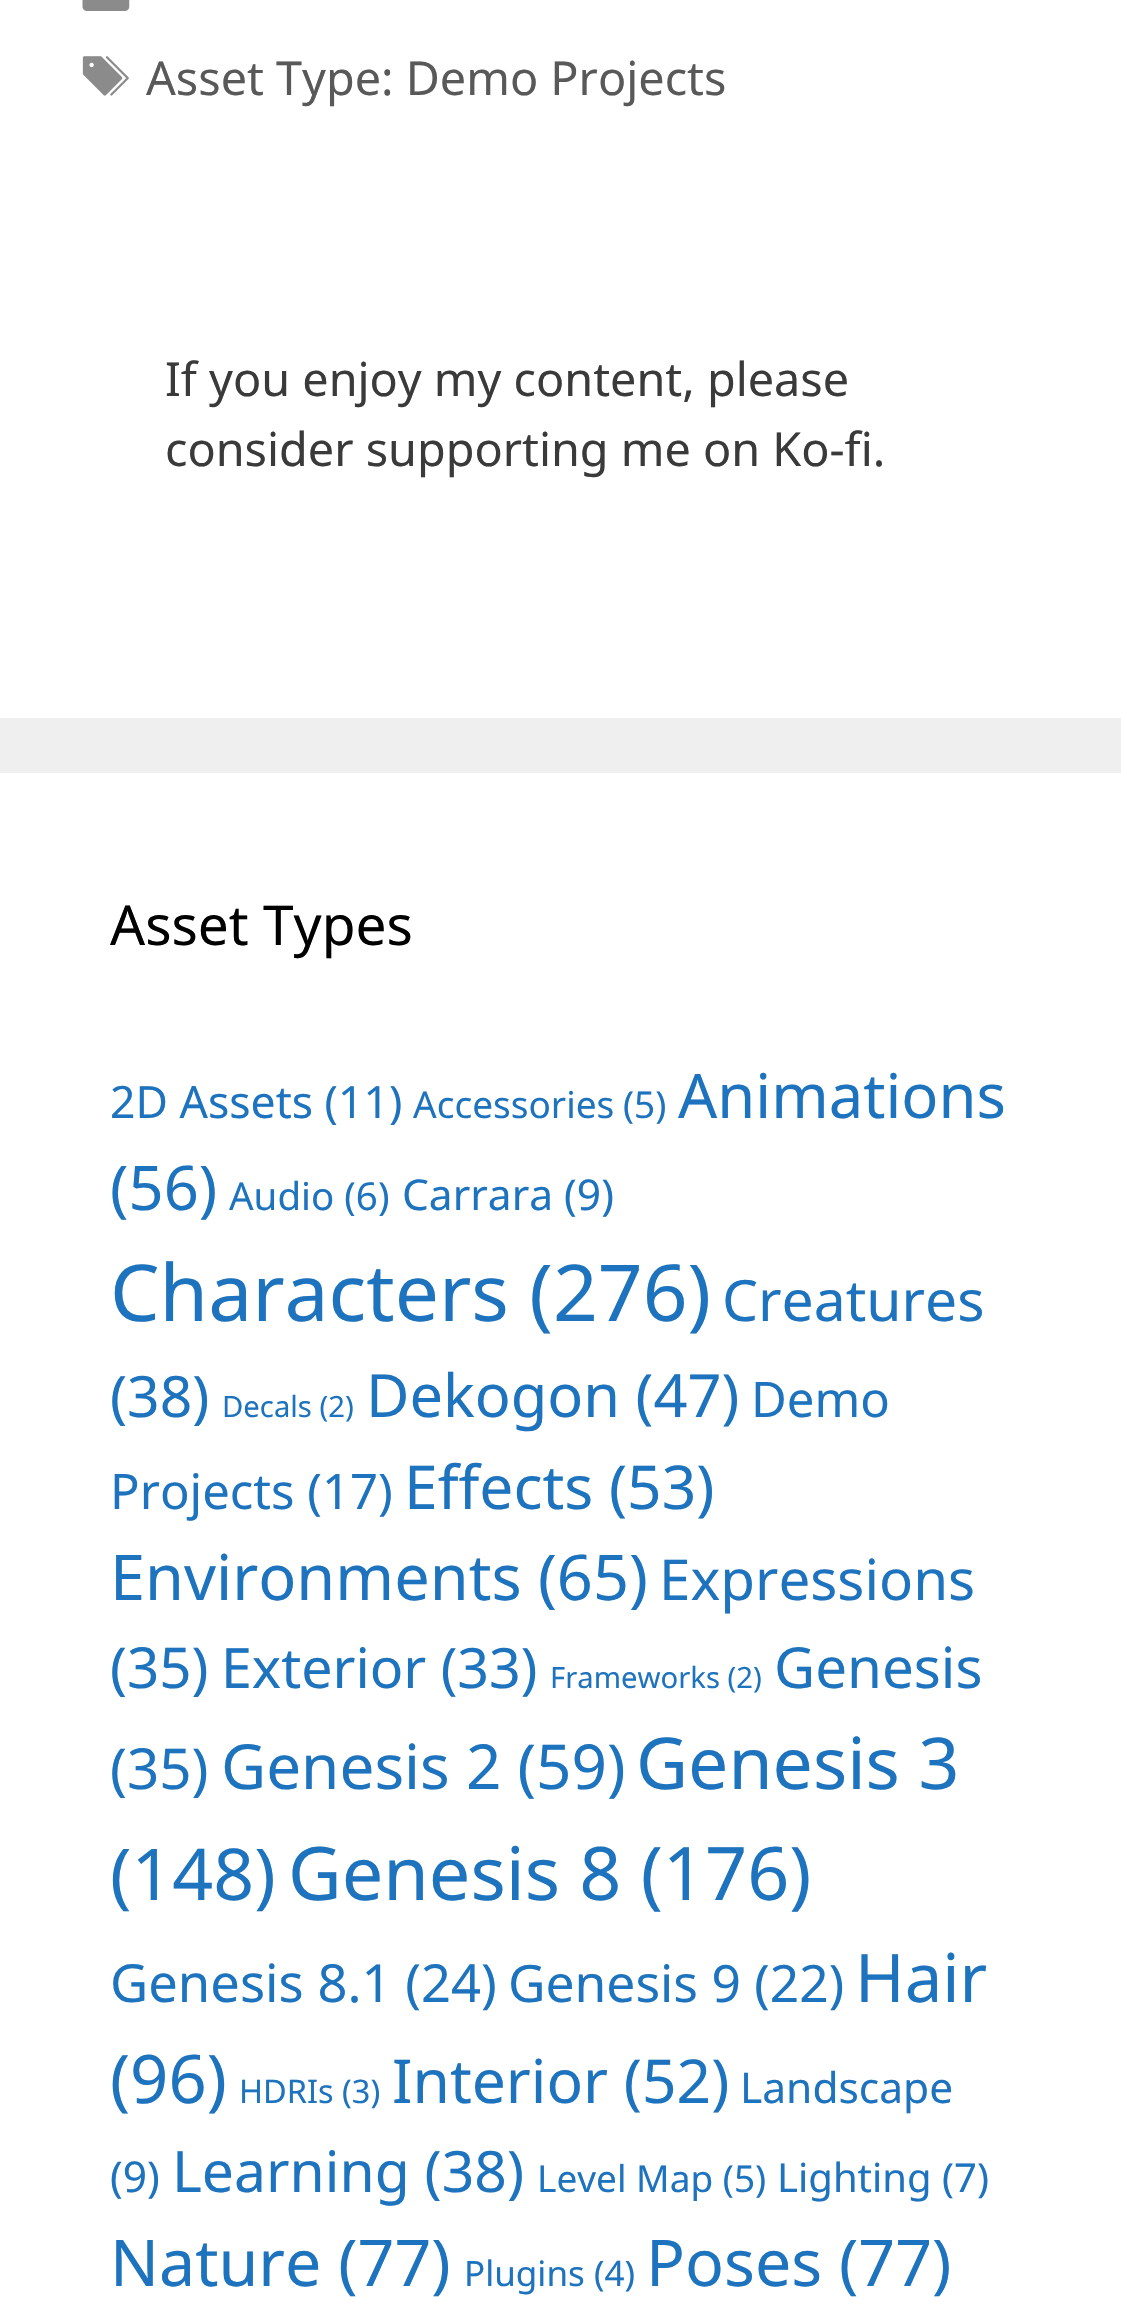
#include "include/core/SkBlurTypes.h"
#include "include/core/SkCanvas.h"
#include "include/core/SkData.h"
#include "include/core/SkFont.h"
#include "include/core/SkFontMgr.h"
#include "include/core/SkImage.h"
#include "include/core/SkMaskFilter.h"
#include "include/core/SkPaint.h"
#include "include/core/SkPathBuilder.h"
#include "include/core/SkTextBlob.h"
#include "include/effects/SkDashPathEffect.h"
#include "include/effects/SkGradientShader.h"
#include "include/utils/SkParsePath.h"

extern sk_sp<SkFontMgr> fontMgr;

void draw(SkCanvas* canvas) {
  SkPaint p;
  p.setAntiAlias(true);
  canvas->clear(SkColorSetRGB(239, 239, 239));
  p.setColor(SK_ColorWHITE);
  canvas->drawRect(SkRect::MakeLTRB(0, 0, 1121, 718), p);
  canvas->drawImageRect(SkImages::DeferredFromEncodedData(SkData::MakeFromFileName("images/1.png")), SkRect::MakeLTRB(82, 0, 130, 11), SkSamplingOptions());
  canvas->drawImageRect(SkImages::DeferredFromEncodedData(SkData::MakeFromFileName("images/2.png")), SkRect::MakeLTRB(82, 56, 129, 96), SkSamplingOptions());
  canvas->drawRect(SkRect::MakeLTRB(0, 773, 1121, 2321), p);
  SkFont font1(fontMgr->matchFamilyStyle("Noto Sans", SkFontStyle::Normal()), 46.75f);
  font1.setSubpixel(true);
  p.setColor(SkColorSetRGB(89, 89, 89));
  canvas->drawString("Asset Type: Demo Projects", 146, 95, font1, p);
  p.setColor(SkColorSetRGB(58, 58, 58));
  canvas->drawString("If you enjoy my content, please", 165, 396, font1, p);
  canvas->drawString("consider supporting me on Ko-fi.", 165, 466, font1, p);
  SkFont font2(fontMgr->matchFamilyStyle("Noto Sans", SkFontStyle::Normal()), 55);
  font2.setSubpixel(true);
  p.setColor(SK_ColorBLACK);
  canvas->drawString("Asset Types", 110, 945, font2, p);
  SkFont font3(fontMgr->matchFamilyStyle("Noto Sans", SkFontStyle::Normal()), 44.5f);
  font3.setSubpixel(true);
  p.setColor(SkColorSetRGB(30, 115, 190));
  canvas->drawString("2D Assets (11)", 110, 1118, font3, p);
  SkFont font4(fontMgr->matchFamilyStyle("Noto Sans", SkFontStyle::Normal()), 37);
  font4.setSubpixel(true);
  canvas->drawString("Accessories", 413, 1118, font4, p);
  canvas->drawString("(5)", 623, 1118, font4, p);
  SkFont font5(fontMgr->matchFamilyStyle("Noto Sans", SkFontStyle::Normal()), 61.5f);
  font5.setSubpixel(true);
  canvas->drawString("Animations", 678, 1118, font5, p);
  canvas->drawString("(56)", 110, 1210, font5, p);
  SkFont font6(fontMgr->matchFamilyStyle("Noto Sans", SkFontStyle::Normal()), 38.5f);
  font6.setSubpixel(true);
  canvas->drawString("Audio (6)", 229, 1210, font6, p);
  SkFont font7(fontMgr->matchFamilyStyle("Noto Sans", SkFontStyle::Normal()), 42.5f);
  font7.setSubpixel(true);
  canvas->drawString("Carrara (9)", 402, 1210, font7, p);
  SkFont font8(fontMgr->matchFamilyStyle("Noto Sans", SkFontStyle::Normal()), 78.5f);
  font8.setSubpixel(true);
  canvas->drawString("Characters (276)", 110, 1321, font8, p);
  SkFont font9(fontMgr->matchFamilyStyle("Noto Sans", SkFontStyle::Normal()), 57);
  font9.setSubpixel(true);
  canvas->drawString("Creatures", 722, 1321, font9, p);
  canvas->drawString("(38)", 110, 1417, font9, p);
  SkFont font10(fontMgr->matchFamilyStyle("Noto Sans", SkFontStyle::Normal()), 29.25f);
  font10.setSubpixel(true);
  canvas->drawString("Decals (2)", 222, 1417, font10, p);
  SkFont font11(fontMgr->matchFamilyStyle("Noto Sans", SkFontStyle::Normal()), 59.5f);
  font11.setSubpixel(true);
  canvas->drawString("Dekogon (47)", 366, 1417, font11, p);
  SkFont font12(fontMgr->matchFamilyStyle("Noto Sans", SkFontStyle::Normal()), 49);
  font12.setSubpixel(true);
  canvas->drawString("Demo", 751, 1417, font12, p);
  canvas->drawString("Projects (17)", 110, 1509, font12, p);
  SkFont font13(fontMgr->matchFamilyStyle("Noto Sans", SkFontStyle::Normal()), 60.5f);
  font13.setSubpixel(true);
  canvas->drawString("Effects (53)", 404, 1509, font13, p);
  SkFont font14(fontMgr->matchFamilyStyle("Noto Sans", SkFontStyle::Normal()), 63);
  font14.setSubpixel(true);
  canvas->drawString("Environments (65)", 110, 1600, font14, p);
  SkFont font15(fontMgr->matchFamilyStyle("Noto Sans", SkFontStyle::Normal()), 56.5f);
  font15.setSubpixel(true);
  canvas->drawString("Expressions", 659, 1600, font15, p);
  canvas->drawString("(35)", 110, 1688, font15, p);
  SkFont font16(fontMgr->matchFamilyStyle("Noto Sans", SkFontStyle::Normal()), 55.5f);
  font16.setSubpixel(true);
  canvas->drawString("Exterior (33)", 221, 1688, font16, p);
  canvas->drawString("Frameworks (2)", 550, 1688, font10, p);
  canvas->drawString("Genesis", 774, 1688, font15, p);
  canvas->drawString("(35)", 110, 1789, font15, p);
  SkFont font17(fontMgr->matchFamilyStyle("Noto Sans", SkFontStyle::Normal()), 62);
  font17.setSubpixel(true);
  canvas->drawString("Genesis 2 (59)", 221, 1789, font17, p);
  SkFont font18(fontMgr->matchFamilyStyle("Noto Sans", SkFontStyle::Normal()), 71.5f);
  font18.setSubpixel(true);
  canvas->drawString("Genesis 3", 636, 1789, font18, p);
  canvas->drawString("(148)", 110, 1900, font18, p);
  SkFont font19(fontMgr->matchFamilyStyle("Noto Sans", SkFontStyle::Normal()), 73.75f);
  font19.setSubpixel(true);
  canvas->drawString("Genesis 8 (176)", 288, 1900, font19, p);
  SkFont font20(fontMgr->matchFamilyStyle("Noto Sans", SkFontStyle::Normal()), 52.5f);
  font20.setSubpixel(true);
  canvas->drawString("Genesis 8.1 (24)", 110, 2002, font20, p);
  SkFont font21(fontMgr->matchFamilyStyle("Noto Sans", SkFontStyle::Normal()), 51.5f);
  font21.setSubpixel(true);
  canvas->drawString("Genesis 9 (22)", 508, 2002, font21, p);
  SkFont font22(fontMgr->matchFamilyStyle("Noto Sans", SkFontStyle::Normal()), 67);
  font22.setSubpixel(true);
  canvas->drawString("Hair", 855, 2002, font22, p);
  canvas->drawString("(96)", 110, 2103, font22, p);
  SkFont font23(fontMgr->matchFamilyStyle("Noto Sans", SkFontStyle::Normal()), 32.5f);
  font23.setSubpixel(true);
  canvas->drawString("HDRIs (3)", 239, 2103, font23, p);
  canvas->drawString("Interior (52)", 392, 2103, font13, p);
  canvas->drawString("Landscape", 740, 2103, font7, p);
  canvas->drawString("(9)", 110, 2192, font7, p);
  canvas->drawString("Learning (38)", 172, 2192, font9, p);
  canvas->drawString("Level Map (5)", 537, 2192, font4, p);
  SkFont font24(fontMgr->matchFamilyStyle("Noto Sans", SkFontStyle::Normal()), 40);
  font24.setSubpixel(true);
  canvas->drawString("Lighting (7)", 777, 2192, font24, p);
  SkFont font25(fontMgr->matchFamilyStyle("Noto Sans", SkFontStyle::Normal()), 64.5f);
  font25.setSubpixel(true);
  canvas->drawString("Nature (77)", 110, 2286, font25, p);
  SkFont font26(fontMgr->matchFamilyStyle("Noto Sans", SkFontStyle::Normal()), 35);
  font26.setSubpixel(true);
  canvas->drawString("Plugins (4)", 464, 2286, font26, p);
  canvas->drawString("Poses (77)", 646, 2286, font25, p);
}
